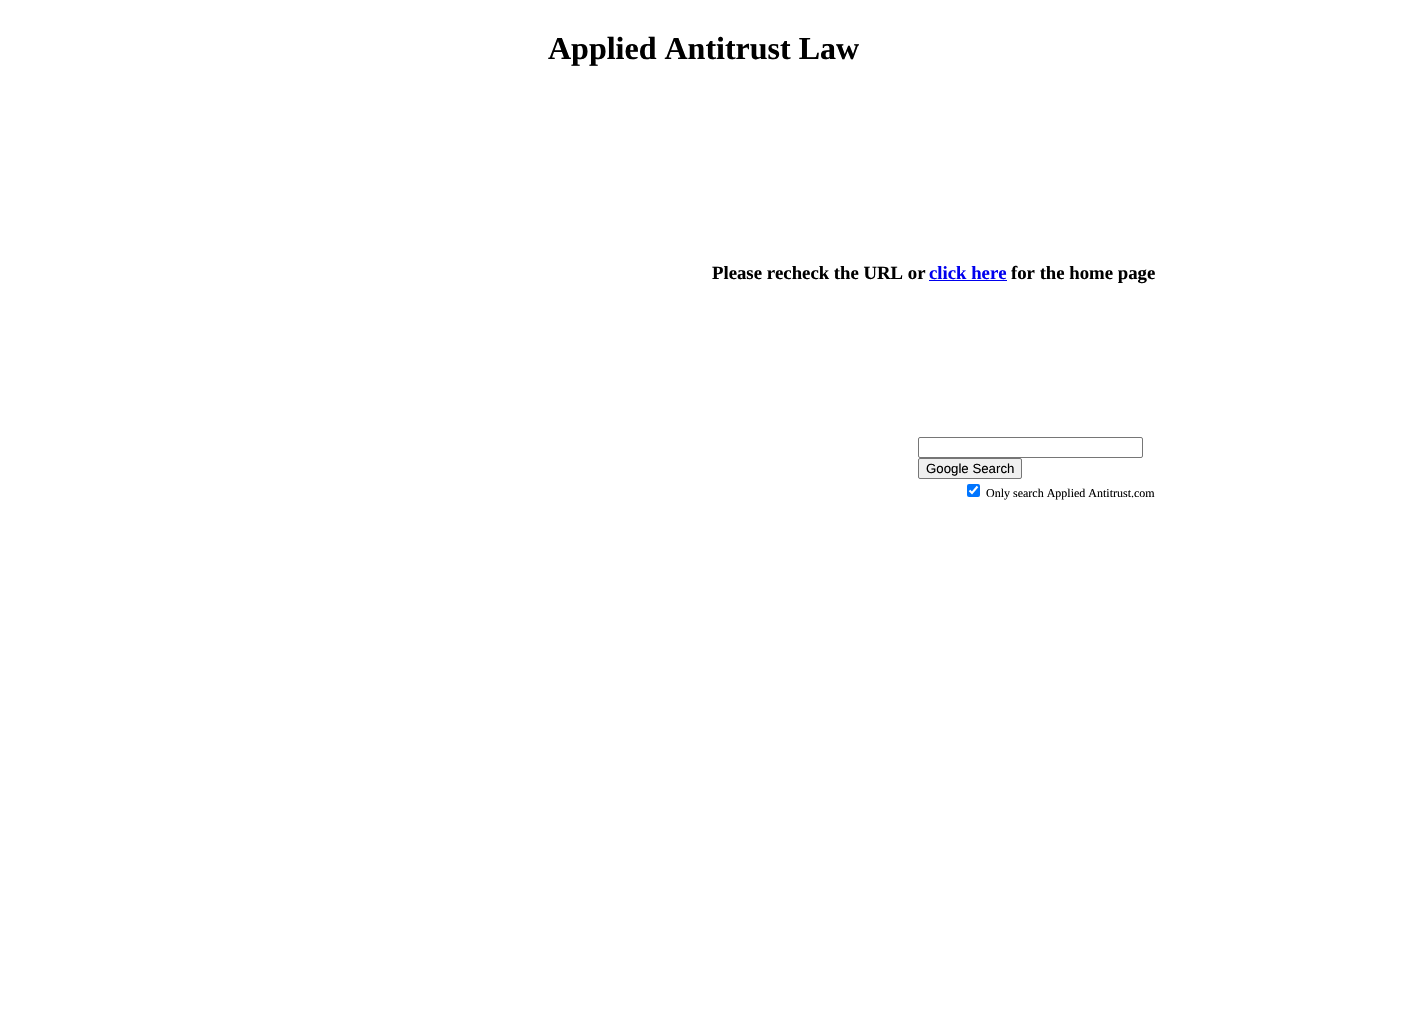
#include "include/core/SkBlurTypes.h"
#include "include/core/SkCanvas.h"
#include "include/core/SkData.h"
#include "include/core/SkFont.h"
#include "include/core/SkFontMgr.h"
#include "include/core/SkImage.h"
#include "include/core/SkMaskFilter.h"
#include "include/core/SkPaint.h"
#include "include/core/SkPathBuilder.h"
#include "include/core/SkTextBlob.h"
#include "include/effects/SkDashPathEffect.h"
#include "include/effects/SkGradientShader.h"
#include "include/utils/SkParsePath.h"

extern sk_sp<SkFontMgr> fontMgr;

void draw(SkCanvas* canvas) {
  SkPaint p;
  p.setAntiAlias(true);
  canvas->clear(SK_ColorWHITE);
  p.setColor(SkColorSetRGB(0, 0, 238));
  canvas->drawRect(SkRect::MakeLTRB(929, 280, 1007, 281), p);
  p.setStyle(SkPaint::kStroke_Style);
  p.setStrokeWidth(1);
  p.setColor(SkColorSetRGB(118, 118, 118));
  canvas->drawRoundRect(SkRect::MakeLTRB(918.5f, 437.5f, 1142.5f, 457.5f), 1.5f, 1.5f, p);
  p.setStyle(SkPaint::kFill_Style);
  p.setColor(SkColorSetRGB(239, 239, 239));
  canvas->drawRoundRect(SkRect::MakeLTRB(918.5f, 458.5f, 1021.5f, 478.5f), 1.5f, 1.5f, p);
  p.setStyle(SkPaint::kStroke_Style);
  p.setColor(SkColorSetRGB(118, 118, 118));
  canvas->drawRoundRect(SkRect::MakeLTRB(918.5f, 458.5f, 1021.5f, 478.5f), 1.5f, 1.5f, p);
  p.setStyle(SkPaint::kFill_Style);
  p.setColor(SkColorSetRGB(0, 117, 255));
  canvas->drawRoundRect(SkRect::MakeLTRB(967, 484, 980, 497), 2, 2, p);
  p.setStyle(SkPaint::kStroke_Style);
  p.setStrokeWidth(2.1f);
  p.setColor(SK_ColorWHITE);
  canvas->drawPath(SkPathBuilder().moveTo(969.5f, 490.5f).lineTo(972, 493).lineTo(977.5f, 486.5f).detach(), p);
  SkFont font1(fontMgr->matchFamilyStyle("Liberation Serif", SkFontStyle::Bold()), 32);
  font1.setSubpixel(true);
  p.setStyle(SkPaint::kFill_Style);
  p.setColor(SK_ColorBLACK);
  canvas->drawString("Applied Antitrust Law", 548, 59, font1, p);
  SkFont font2(fontMgr->matchFamilyStyle("Liberation Serif", SkFontStyle::Bold()), 18.75f);
  font2.setSubpixel(true);
  canvas->drawString("Please recheck the URL or", 712, 279, font2, p);
  p.setColor(SkColorSetRGB(0, 0, 238));
  canvas->drawString("click here", 929, 279, font2, p);
  p.setColor(SK_ColorBLACK);
  canvas->drawString("for the home page", 1011, 279, font2, p);
  SkFont font3(fontMgr->matchFamilyStyle("Liberation Sans", SkFontStyle::Normal()), 13.25f);
  font3.setSubpixel(true);
  canvas->drawString("Google Search", 926, 473, font3, p);
  SkFont font4(fontMgr->matchFamilyStyle("Liberation Serif", SkFontStyle::Normal()), 12);
  font4.setSubpixel(true);
  canvas->drawString("Only search Applied Antitrust.com", 986, 497, font4, p);
}
